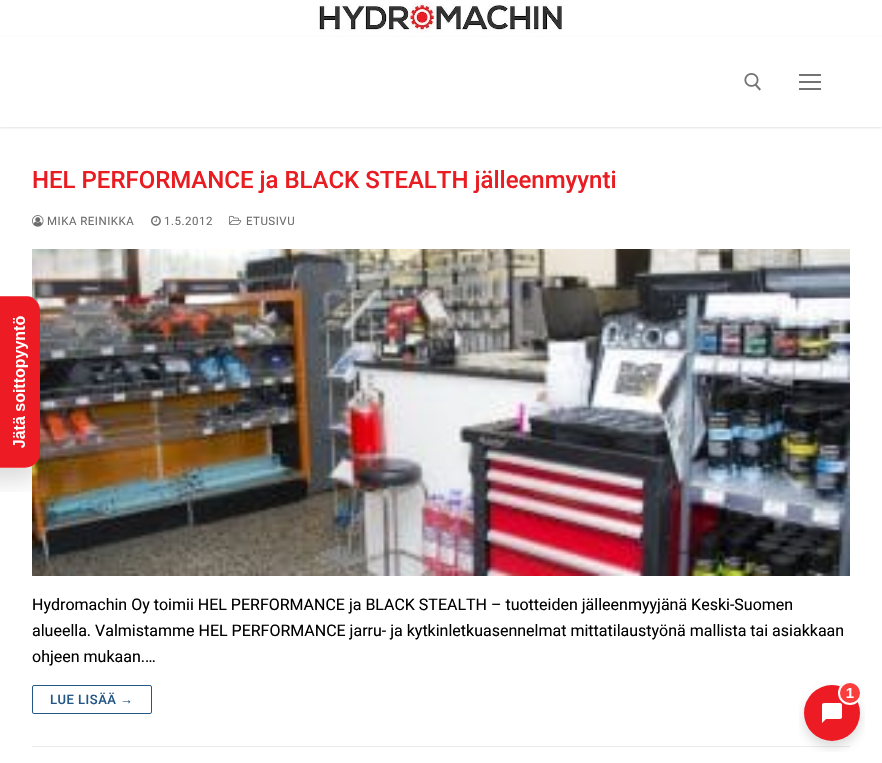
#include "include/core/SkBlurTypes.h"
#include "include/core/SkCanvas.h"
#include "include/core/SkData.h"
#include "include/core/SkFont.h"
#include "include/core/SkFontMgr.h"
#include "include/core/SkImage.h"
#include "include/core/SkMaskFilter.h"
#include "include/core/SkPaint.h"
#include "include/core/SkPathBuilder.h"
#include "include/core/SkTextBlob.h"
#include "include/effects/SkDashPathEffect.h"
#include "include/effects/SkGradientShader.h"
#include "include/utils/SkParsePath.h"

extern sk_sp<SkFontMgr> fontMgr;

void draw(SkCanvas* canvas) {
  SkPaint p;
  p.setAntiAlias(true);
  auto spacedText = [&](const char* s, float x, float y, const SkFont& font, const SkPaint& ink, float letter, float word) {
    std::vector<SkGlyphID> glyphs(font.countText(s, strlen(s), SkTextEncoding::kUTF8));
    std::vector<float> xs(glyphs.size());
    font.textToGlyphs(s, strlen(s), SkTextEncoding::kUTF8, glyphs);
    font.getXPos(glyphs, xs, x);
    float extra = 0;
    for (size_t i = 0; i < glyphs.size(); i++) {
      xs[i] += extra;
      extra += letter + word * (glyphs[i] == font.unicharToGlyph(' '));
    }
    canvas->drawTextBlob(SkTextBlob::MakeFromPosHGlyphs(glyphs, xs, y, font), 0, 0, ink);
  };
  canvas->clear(SK_ColorWHITE);
  canvas->drawImageRect(SkImages::DeferredFromEncodedData(SkData::MakeFromFileName("images/7.png")), SkRect::MakeLTRB(32, 249, 850, 576), SkSamplingOptions());
  canvas->drawImageRect(SkImages::DeferredFromEncodedData(SkData::MakeFromFileName("images/1.png")), SkRect::MakeLTRB(0, 296, 52, 492), SkSamplingOptions());
  canvas->drawImageRect(SkImages::DeferredFromEncodedData(SkData::MakeFromFileName("images/2.png")), SkRect::MakeLTRB(319, 0, 562, 33), SkSamplingOptions());
  canvas->save();
  canvas->clipPath(SkPathBuilder(SkPathFillType::kEvenOdd).moveTo(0, 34).lineTo(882, 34).lineTo(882, 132).lineTo(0, 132).close().moveTo(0, 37).lineTo(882, 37).lineTo(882, 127).lineTo(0, 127).close().detach(), true);
  p.setColor(SkColorSetRGB(225, 229, 234));
  p.setMaskFilter(SkMaskFilter::MakeBlur(kNormal_SkBlurStyle, 1));
  canvas->drawRect(SkRect::MakeLTRB(0, 38, 882, 128), p);
  p.setMaskFilter(nullptr);
  canvas->restore();
  canvas->drawImageRect(SkImages::DeferredFromEncodedData(SkData::MakeFromFileName("images/3.png")), SkRect::MakeLTRB(744, 73, 761, 91), SkSamplingOptions());
  p.setColor(SkColorSetRGB(115, 115, 115));
  canvas->drawRect(SkRect::MakeLTRB(799, 81, 821, 83), p);
  canvas->drawRect(SkRect::MakeLTRB(799, 74, 821, 76), p);
  canvas->drawRect(SkRect::MakeLTRB(799, 88, 821, 90), p);
  p.setColor(SkColorSetRGB(234, 236, 238));
  canvas->drawRect(SkRect::MakeLTRB(32, 746, 850, 747), p);
  canvas->drawImageRect(SkImages::DeferredFromEncodedData(SkData::MakeFromFileName("images/4.png")), SkRect::MakeLTRB(32, 215, 44, 227), SkSamplingOptions());
  canvas->drawImageRect(SkImages::DeferredFromEncodedData(SkData::MakeFromFileName("images/5.png")), SkRect::MakeLTRB(151, 216, 161, 226), SkSamplingOptions());
  canvas->drawImageRect(SkImages::DeferredFromEncodedData(SkData::MakeFromFileName("images/6.png")), SkRect::MakeLTRB(229, 215, 242, 225), SkSamplingOptions());
  p.setStyle(SkPaint::kStroke_Style);
  p.setStrokeWidth(1);
  p.setColor(SkColorSetRGB(35, 87, 135));
  canvas->drawRoundRect(SkRect::MakeLTRB(32.5f, 685.5f, 151.5f, 713.5f), 1.5f, 1.5f, p);
  canvas->drawImageRect(SkImages::DeferredFromEncodedData(SkData::MakeFromFileName("images/8.png")), SkRect::MakeLTRB(799, 683, 865, 752), SkSamplingOptions());
  SkFont font1(fontMgr->matchFamilyStyle("Roboto", SkFontStyle(500, SkFontStyle::kNormal_Width, SkFontStyle::kUpright_Slant)), 24);
  font1.setSubpixel(true);
  p.setStyle(SkPaint::kFill_Style);
  p.setColor(SkColorSetRGB(233, 28, 34));
  canvas->drawString("HEL PERFORMANCE ja BLACK STEALTH jälleenmyynti", 32, 188, font1, p);
  SkFont font2(fontMgr->matchFamilyStyle("Roboto", SkFontStyle::Normal()), 11.5f);
  font2.setSubpixel(true);
  p.setColor(SkColorSetRGB(109, 109, 109));
  spacedText("MIKA REINIKKA", 47, 225, font2, p, 0.5f, 0);
  spacedText("1.5.2012", 164, 225, font2, p, 0.5f, 0);
  spacedText("ETUSIVU", 246, 225, font2, p, 0.5f, 0);
  SkFont font3(fontMgr->matchFamilyStyle("Roboto", SkFontStyle::Normal()), 16);
  font3.setSubpixel(true);
  p.setColor(SK_ColorBLACK);
  canvas->drawString("Hydromachin Oy toimii HEL PERFORMANCE ja BLACK STEALTH – tuotteiden jälleenmyyjänä Keski-Suomen", 32, 610, font3, p);
  canvas->drawString("alueella. Valmistamme HEL PERFORMANCE jarru- ja kytkinletkuasennelmat mittatilaustyönä mallista tai asiakkaan", 32, 636, font3, p);
  canvas->drawString("ohjeen mukaan.…", 32, 662, font3, p);
  SkFont font4(fontMgr->matchFamilyStyle("Roboto", SkFontStyle(500, SkFontStyle::kNormal_Width, SkFontStyle::kUpright_Slant)), 13);
  font4.setSubpixel(true);
  p.setColor(SkColorSetRGB(35, 87, 135));
  spacedText("LUE LISÄÄ", 50, 704, font4, p, 0.5f, 0);
  SkFont font5(fontMgr->matchFamilyStyle("Liberation Sans", SkFontStyle::Normal()), 13);
  font5.setSubpixel(true);
  spacedText("→", 120, 704, font5, p, 0.5f, 0);
}
